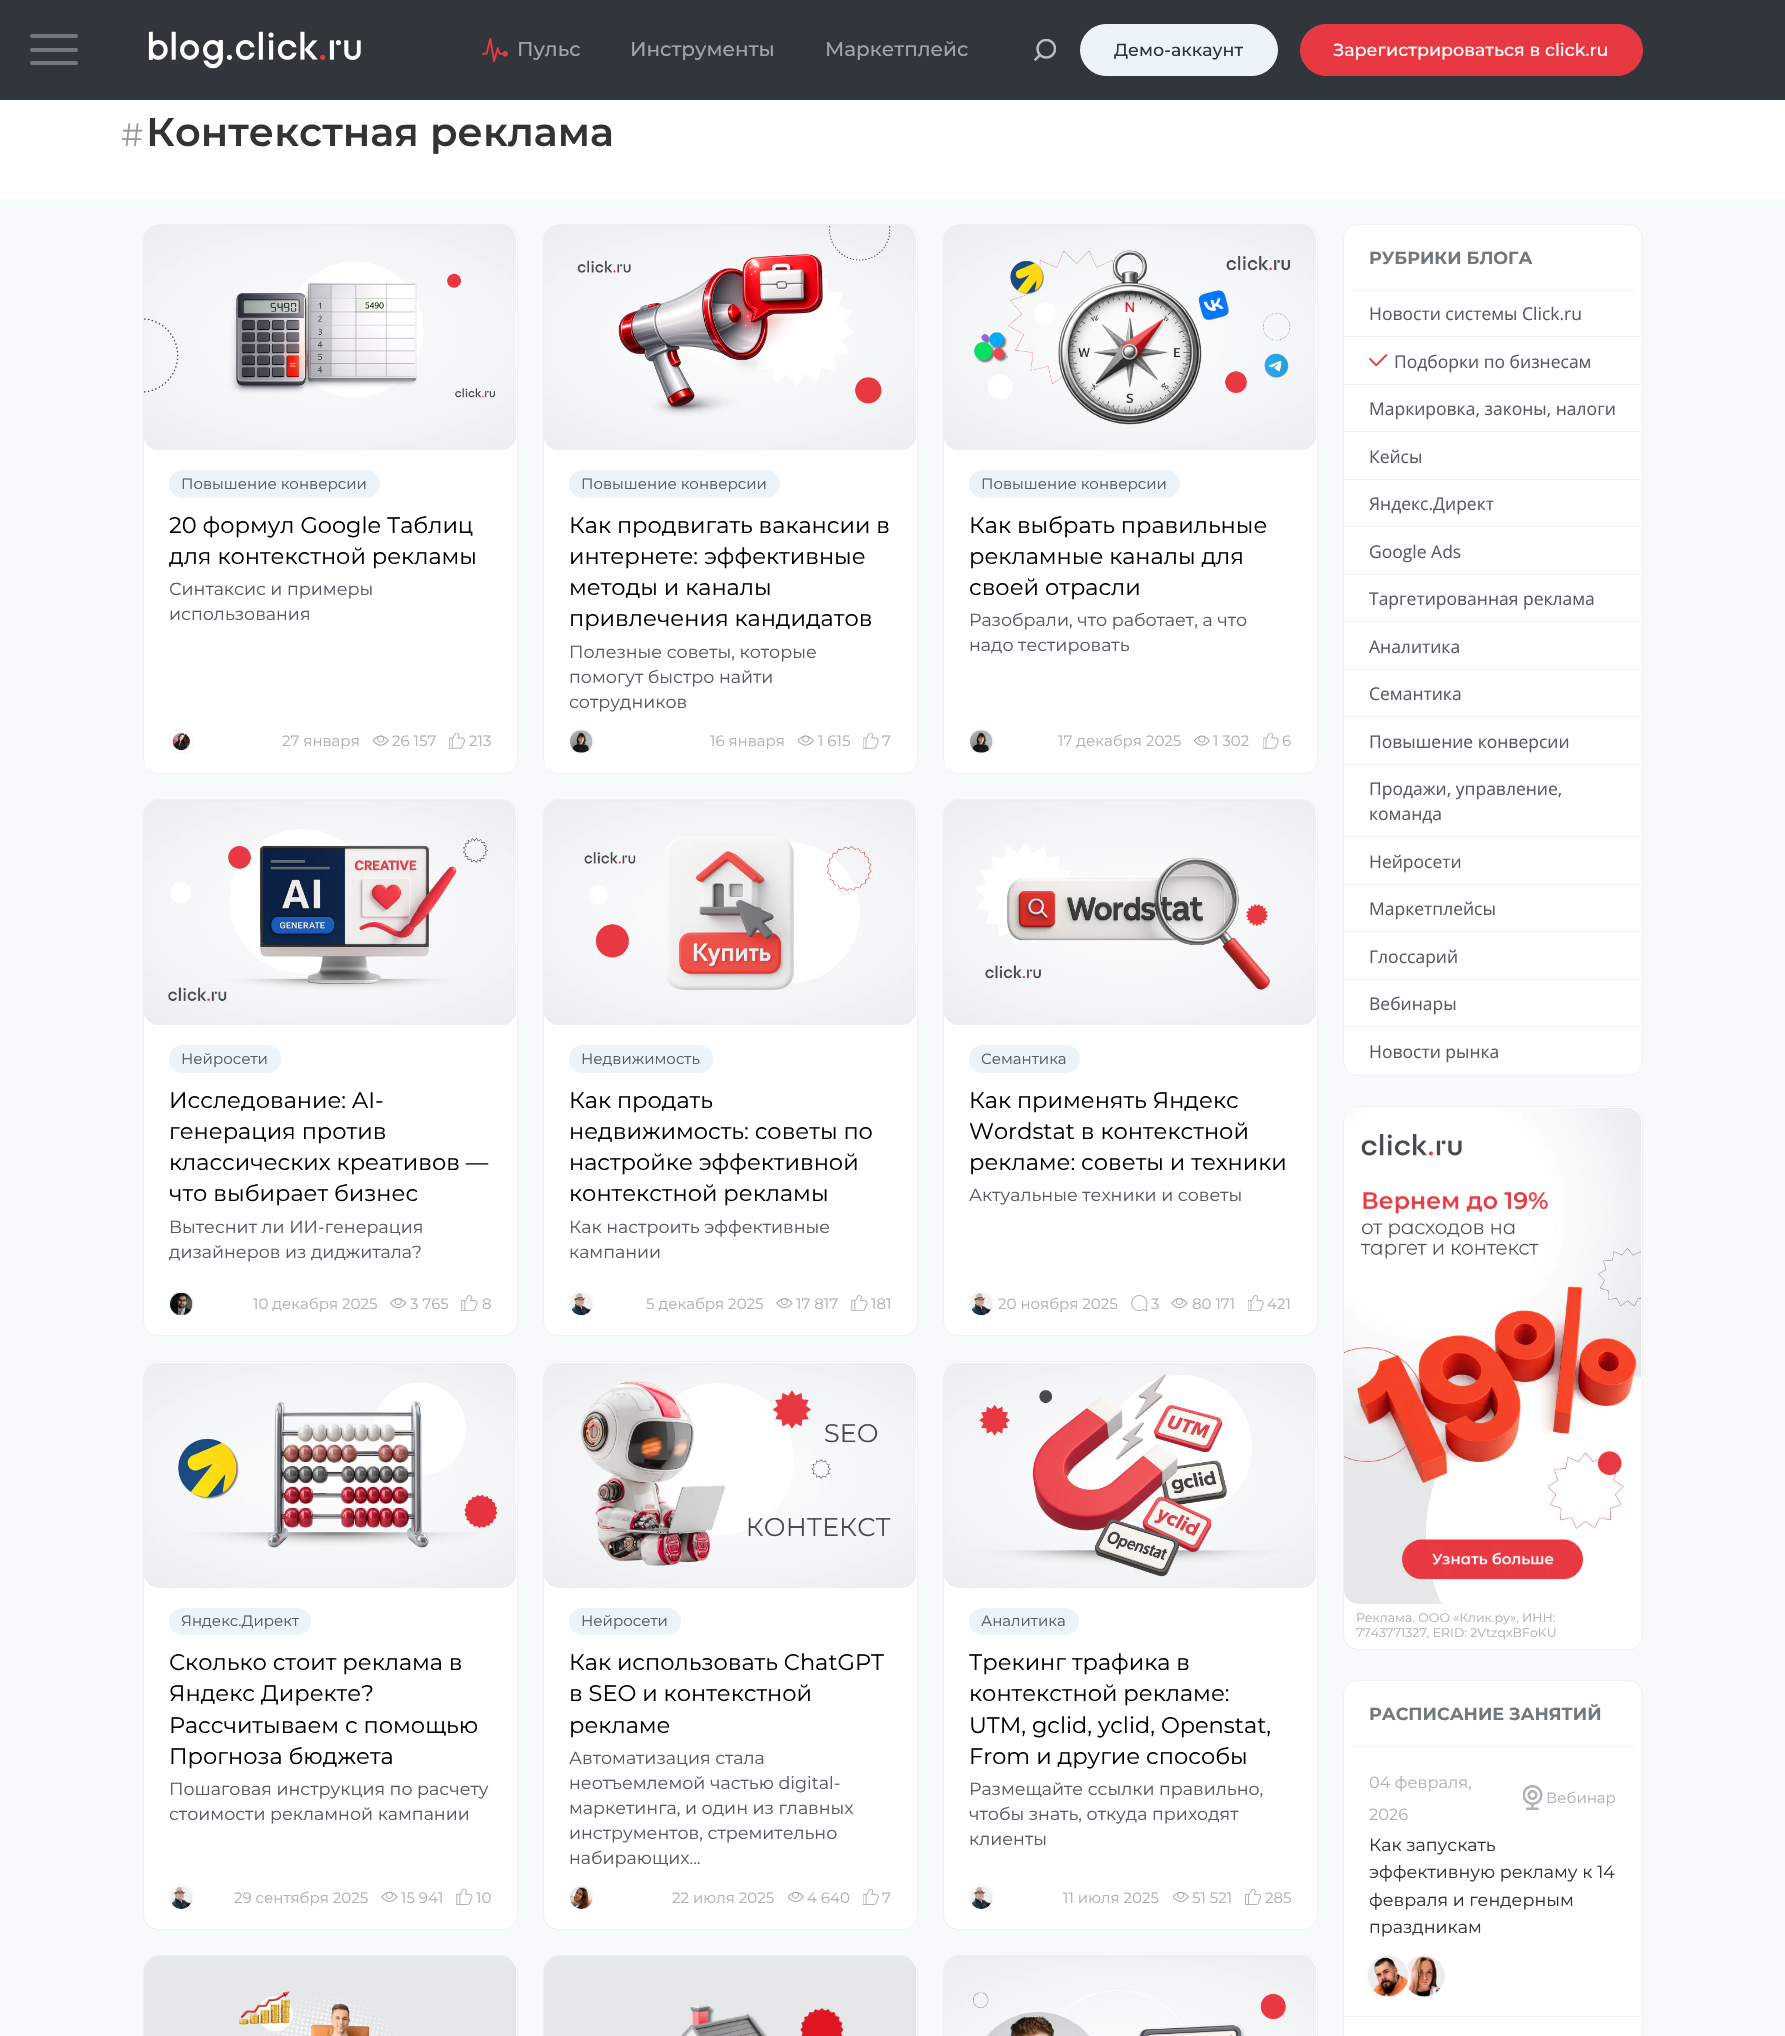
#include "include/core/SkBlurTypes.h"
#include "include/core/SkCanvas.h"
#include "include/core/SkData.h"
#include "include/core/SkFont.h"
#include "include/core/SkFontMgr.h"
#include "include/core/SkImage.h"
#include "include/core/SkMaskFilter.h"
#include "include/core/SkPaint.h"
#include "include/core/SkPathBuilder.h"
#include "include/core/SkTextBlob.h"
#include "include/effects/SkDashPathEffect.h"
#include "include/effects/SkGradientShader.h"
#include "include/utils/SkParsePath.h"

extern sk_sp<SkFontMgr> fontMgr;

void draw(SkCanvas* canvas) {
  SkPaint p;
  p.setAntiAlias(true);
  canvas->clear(SK_ColorWHITE);
  p.setColor(SkColorSetRGB(48, 54, 60));
  canvas->drawRect(SkRect::MakeLTRB(0, 0, 1785, 100), p);
  p.setColor(SkColorSetRGB(115, 120, 127));
  canvas->drawRoundRect(SkRect::MakeLTRB(30, 48, 78, 52), 2, 2, p);
  canvas->drawRoundRect(SkRect::MakeLTRB(30, 34, 78, 38), 2, 2, p);
  canvas->drawRoundRect(SkRect::MakeLTRB(30, 61, 78, 65), 2, 2, p);
  canvas->drawImageRect(SkImages::DeferredFromEncodedData(SkData::MakeFromFileName("images/1.png")), SkRect::MakeLTRB(148, 31, 361, 69), SkSamplingOptions());
  canvas->drawImageRect(SkImages::DeferredFromEncodedData(SkData::MakeFromFileName("images/2.png")), SkRect::MakeLTRB(481, 37, 509, 63), SkSamplingOptions());
  canvas->drawImageRect(SkImages::DeferredFromEncodedData(SkData::MakeFromFileName("images/3.png")), SkRect::MakeLTRB(1034, 39, 1056, 61), SkSamplingOptions());
  p.setColor(SkColorSetRGB(236, 244, 249));
  canvas->drawRoundRect(SkRect::MakeLTRB(1080.5f, 24.5f, 1277.5f, 75.5f), 25.5f, 25.5f, p);
  p.setStyle(SkPaint::kStroke_Style);
  p.setStrokeWidth(1);
  canvas->drawRoundRect(SkRect::MakeLTRB(1080.5f, 24.5f, 1277.5f, 75.5f), 25.5f, 25.5f, p);
  p.setStyle(SkPaint::kFill_Style);
  p.setColor(SkColorSetRGB(232, 57, 67));
  canvas->drawRoundRect(SkRect::MakeLTRB(1300.5f, 24.5f, 1642.5f, 75.5f), 25.5f, 25.5f, p);
  p.setStyle(SkPaint::kStroke_Style);
  canvas->drawRoundRect(SkRect::MakeLTRB(1300.5f, 24.5f, 1642.5f, 75.5f), 25.5f, 25.5f, p);
  p.setStyle(SkPaint::kFill_Style);
  p.setColor(SkColorSetRGB(247, 250, 250));
  canvas->drawRect(SkRect::MakeLTRB(0, 199, 1785, 2036), p);
  p.setColor(SK_ColorWHITE);
  canvas->drawRoundRect(SkRect::MakeLTRB(143, 224, 518, 774), 15, 15, p);
  p.setStyle(SkPaint::kStroke_Style);
  p.setColor(SkColorSetARGB(26, 111, 121, 123));
  canvas->drawRoundRect(SkRect::MakeLTRB(143.5f, 224.5f, 517.5f, 773.5f), 14.5f, 14.5f, p);
  p.setStyle(SkPaint::kFill_Style);
  p.setColor(SkColorSetRGB(228, 233, 236));
  canvas->drawRoundRect(SkRect::MakeLTRB(144, 225, 516, 450), 15, 15, p);
  canvas->drawImageRect(SkImages::DeferredFromEncodedData(SkData::MakeFromFileName("images/4.png")), SkRect::MakeLTRB(144, 225, 516, 450), SkSamplingOptions());
  p.setColor(SkColorSetRGB(236, 244, 249));
  canvas->drawRoundRect(SkRect::MakeLTRB(169, 470, 380, 498), 14, 14, p);
  p.setStyle(SkPaint::kStroke_Style);
  p.setColor(SkColorSetRGB(241, 242, 242));
  canvas->drawCircle(181.5f, 741.5f, 12, p);
  canvas->drawImageRect(SkImages::DeferredFromEncodedData(SkData::MakeFromFileName("images/5.png")), SkRect::MakeLTRB(172, 732, 190, 751), SkSamplingOptions());
  canvas->drawImageRect(SkImages::DeferredFromEncodedData(SkData::MakeFromFileName("images/6.png")), SkRect::MakeLTRB(373, 735, 389, 746), SkSamplingOptions());
  canvas->drawImageRect(SkImages::DeferredFromEncodedData(SkData::MakeFromFileName("images/7.png")), SkRect::MakeLTRB(449, 733, 465, 749), SkSamplingOptions());
  p.setStyle(SkPaint::kFill_Style);
  p.setColor(SK_ColorWHITE);
  canvas->drawRoundRect(SkRect::MakeLTRB(543, 224, 918, 774), 15, 15, p);
  p.setStyle(SkPaint::kStroke_Style);
  p.setColor(SkColorSetARGB(26, 111, 121, 123));
  canvas->drawRoundRect(SkRect::MakeLTRB(543.5f, 224.5f, 917.5f, 773.5f), 14.5f, 14.5f, p);
  p.setStyle(SkPaint::kFill_Style);
  p.setColor(SkColorSetRGB(228, 233, 236));
  canvas->drawRoundRect(SkRect::MakeLTRB(544, 225, 916, 450), 15, 15, p);
  canvas->drawImageRect(SkImages::DeferredFromEncodedData(SkData::MakeFromFileName("images/8.png")), SkRect::MakeLTRB(544, 225, 916, 450), SkSamplingOptions());
  p.setColor(SkColorSetRGB(236, 244, 249));
  canvas->drawRoundRect(SkRect::MakeLTRB(569, 470, 780, 498), 14, 14, p);
  p.setStyle(SkPaint::kStroke_Style);
  p.setColor(SkColorSetRGB(241, 242, 242));
  canvas->drawCircle(581.5f, 741.5f, 12, p);
  canvas->drawImageRect(SkImages::DeferredFromEncodedData(SkData::MakeFromFileName("images/9.png")), SkRect::MakeLTRB(570, 730, 593, 753), SkSamplingOptions());
  canvas->drawImageRect(SkImages::DeferredFromEncodedData(SkData::MakeFromFileName("images/6.png")), SkRect::MakeLTRB(798, 735, 814, 746), SkSamplingOptions());
  canvas->drawImageRect(SkImages::DeferredFromEncodedData(SkData::MakeFromFileName("images/10.png")), SkRect::MakeLTRB(863, 733, 879, 749), SkSamplingOptions());
  p.setStyle(SkPaint::kFill_Style);
  p.setColor(SK_ColorWHITE);
  canvas->drawRoundRect(SkRect::MakeLTRB(943, 224, 1318, 774), 15, 15, p);
  p.setStyle(SkPaint::kStroke_Style);
  p.setColor(SkColorSetARGB(26, 111, 121, 123));
  canvas->drawRoundRect(SkRect::MakeLTRB(943.5f, 224.5f, 1317.5f, 773.5f), 14.5f, 14.5f, p);
  p.setStyle(SkPaint::kFill_Style);
  p.setColor(SkColorSetRGB(228, 233, 236));
  canvas->drawRoundRect(SkRect::MakeLTRB(944, 225, 1316, 450), 15, 15, p);
  canvas->drawImageRect(SkImages::DeferredFromEncodedData(SkData::MakeFromFileName("images/11.png")), SkRect::MakeLTRB(944, 225, 1316, 450), SkSamplingOptions());
  p.setColor(SkColorSetRGB(236, 244, 249));
  canvas->drawRoundRect(SkRect::MakeLTRB(969, 470, 1180, 498), 14, 14, p);
  p.setStyle(SkPaint::kStroke_Style);
  p.setColor(SkColorSetRGB(241, 242, 242));
  canvas->drawCircle(981.5f, 741.5f, 12, p);
  canvas->drawImageRect(SkImages::DeferredFromEncodedData(SkData::MakeFromFileName("images/9.png")), SkRect::MakeLTRB(970, 730, 993, 753), SkSamplingOptions());
  canvas->drawImageRect(SkImages::DeferredFromEncodedData(SkData::MakeFromFileName("images/12.png")), SkRect::MakeLTRB(1194, 735, 1210, 746), SkSamplingOptions());
  canvas->drawImageRect(SkImages::DeferredFromEncodedData(SkData::MakeFromFileName("images/10.png")), SkRect::MakeLTRB(1263, 733, 1279, 749), SkSamplingOptions());
  p.setStyle(SkPaint::kFill_Style);
  p.setColor(SK_ColorWHITE);
  canvas->drawRoundRect(SkRect::MakeLTRB(143, 799, 518, 1336), 15, 15, p);
  p.setStyle(SkPaint::kStroke_Style);
  p.setColor(SkColorSetARGB(26, 111, 121, 123));
  canvas->drawRoundRect(SkRect::MakeLTRB(143.5f, 799.5f, 517.5f, 1335.5f), 14.5f, 14.5f, p);
  p.setStyle(SkPaint::kFill_Style);
  p.setColor(SkColorSetRGB(228, 233, 236));
  canvas->drawRoundRect(SkRect::MakeLTRB(144, 800, 516, 1025), 15, 15, p);
  canvas->drawImageRect(SkImages::DeferredFromEncodedData(SkData::MakeFromFileName("images/13.png")), SkRect::MakeLTRB(144, 800, 516, 1025), SkSamplingOptions());
  p.setColor(SkColorSetRGB(236, 244, 249));
  canvas->drawRoundRect(SkRect::MakeLTRB(169, 1045, 281, 1073), 14, 14, p);
  p.setStyle(SkPaint::kStroke_Style);
  p.setColor(SkColorSetRGB(241, 242, 242));
  canvas->drawCircle(181.5f, 1303.5f, 12, p);
  canvas->drawImageRect(SkImages::DeferredFromEncodedData(SkData::MakeFromFileName("images/14.png")), SkRect::MakeLTRB(170, 1292, 193, 1315), SkSamplingOptions());
  canvas->drawImageRect(SkImages::DeferredFromEncodedData(SkData::MakeFromFileName("images/15.png")), SkRect::MakeLTRB(390, 1298, 406, 1309), SkSamplingOptions());
  canvas->drawImageRect(SkImages::DeferredFromEncodedData(SkData::MakeFromFileName("images/16.png")), SkRect::MakeLTRB(461, 1295, 478, 1311), SkSamplingOptions());
  p.setStyle(SkPaint::kFill_Style);
  p.setColor(SK_ColorWHITE);
  canvas->drawRoundRect(SkRect::MakeLTRB(543, 799, 918, 1336), 15, 15, p);
  p.setStyle(SkPaint::kStroke_Style);
  p.setColor(SkColorSetARGB(26, 111, 121, 123));
  canvas->drawRoundRect(SkRect::MakeLTRB(543.5f, 799.5f, 917.5f, 1335.5f), 14.5f, 14.5f, p);
  p.setStyle(SkPaint::kFill_Style);
  p.setColor(SkColorSetRGB(228, 233, 236));
  canvas->drawRoundRect(SkRect::MakeLTRB(544, 800, 916, 1025), 15, 15, p);
  canvas->drawImageRect(SkImages::DeferredFromEncodedData(SkData::MakeFromFileName("images/17.png")), SkRect::MakeLTRB(544, 800, 916, 1025), SkSamplingOptions());
  p.setColor(SkColorSetRGB(236, 244, 249));
  canvas->drawRoundRect(SkRect::MakeLTRB(569, 1045, 713, 1073), 14, 14, p);
  p.setStyle(SkPaint::kStroke_Style);
  p.setColor(SkColorSetRGB(241, 242, 242));
  canvas->drawCircle(581.5f, 1303.5f, 12, p);
  canvas->drawImageRect(SkImages::DeferredFromEncodedData(SkData::MakeFromFileName("images/18.png")), SkRect::MakeLTRB(570, 1293, 592, 1316), SkSamplingOptions());
  canvas->drawImageRect(SkImages::DeferredFromEncodedData(SkData::MakeFromFileName("images/19.png")), SkRect::MakeLTRB(776, 1298, 793, 1309), SkSamplingOptions());
  canvas->drawImageRect(SkImages::DeferredFromEncodedData(SkData::MakeFromFileName("images/16.png")), SkRect::MakeLTRB(851, 1295, 868, 1311), SkSamplingOptions());
  p.setStyle(SkPaint::kFill_Style);
  p.setColor(SK_ColorWHITE);
  canvas->drawRoundRect(SkRect::MakeLTRB(943, 799, 1318, 1336), 15, 15, p);
  p.setStyle(SkPaint::kStroke_Style);
  p.setColor(SkColorSetARGB(26, 111, 121, 123));
  canvas->drawRoundRect(SkRect::MakeLTRB(943.5f, 799.5f, 1317.5f, 1335.5f), 14.5f, 14.5f, p);
  p.setStyle(SkPaint::kFill_Style);
  p.setColor(SkColorSetRGB(228, 233, 236));
  canvas->drawRoundRect(SkRect::MakeLTRB(944, 800, 1316, 1025), 15, 15, p);
  canvas->drawImageRect(SkImages::DeferredFromEncodedData(SkData::MakeFromFileName("images/20.png")), SkRect::MakeLTRB(944, 800, 1316, 1025), SkSamplingOptions());
  p.setColor(SkColorSetRGB(236, 244, 249));
  canvas->drawRoundRect(SkRect::MakeLTRB(969, 1045, 1080, 1073), 14, 14, p);
  p.setStyle(SkPaint::kStroke_Style);
  p.setColor(SkColorSetRGB(241, 242, 242));
  canvas->drawCircle(981.5f, 1303.5f, 12, p);
  canvas->drawImageRect(SkImages::DeferredFromEncodedData(SkData::MakeFromFileName("images/18.png")), SkRect::MakeLTRB(970, 1293, 992, 1316), SkSamplingOptions());
  canvas->drawImageRect(SkImages::DeferredFromEncodedData(SkData::MakeFromFileName("images/21.png")), SkRect::MakeLTRB(1131, 1295, 1148, 1311), SkSamplingOptions());
  canvas->drawImageRect(SkImages::DeferredFromEncodedData(SkData::MakeFromFileName("images/19.png")), SkRect::MakeLTRB(1171, 1298, 1188, 1309), SkSamplingOptions());
  canvas->drawImageRect(SkImages::DeferredFromEncodedData(SkData::MakeFromFileName("images/22.png")), SkRect::MakeLTRB(1248, 1295, 1264, 1311), SkSamplingOptions());
  p.setStyle(SkPaint::kFill_Style);
  p.setColor(SK_ColorWHITE);
  canvas->drawRoundRect(SkRect::MakeLTRB(143, 1361, 518, 1930), 15, 15, p);
  p.setStyle(SkPaint::kStroke_Style);
  p.setColor(SkColorSetARGB(26, 111, 121, 123));
  canvas->drawRoundRect(SkRect::MakeLTRB(143.5f, 1361.5f, 517.5f, 1929.5f), 14.5f, 14.5f, p);
  p.setStyle(SkPaint::kFill_Style);
  p.setColor(SkColorSetRGB(228, 233, 236));
  canvas->drawRoundRect(SkRect::MakeLTRB(144, 1363, 516, 1588), 15, 15, p);
  canvas->drawImageRect(SkImages::DeferredFromEncodedData(SkData::MakeFromFileName("images/23.png")), SkRect::MakeLTRB(144, 1363, 516, 1588), SkSamplingOptions());
  p.setColor(SkColorSetRGB(236, 244, 249));
  canvas->drawRoundRect(SkRect::MakeLTRB(169, 1608, 311, 1635), 13.5f, 13.5f, p);
  p.setStyle(SkPaint::kStroke_Style);
  p.setColor(SkColorSetRGB(241, 242, 242));
  canvas->drawCircle(181.5f, 1897.5f, 12, p);
  canvas->drawImageRect(SkImages::DeferredFromEncodedData(SkData::MakeFromFileName("images/24.png")), SkRect::MakeLTRB(170, 1887, 192, 1909), SkSamplingOptions());
  canvas->drawImageRect(SkImages::DeferredFromEncodedData(SkData::MakeFromFileName("images/25.png")), SkRect::MakeLTRB(381, 1891, 398, 1902), SkSamplingOptions());
  canvas->drawImageRect(SkImages::DeferredFromEncodedData(SkData::MakeFromFileName("images/26.png")), SkRect::MakeLTRB(456, 1889, 473, 1905), SkSamplingOptions());
  p.setStyle(SkPaint::kFill_Style);
  p.setColor(SK_ColorWHITE);
  canvas->drawRoundRect(SkRect::MakeLTRB(543, 1361, 918, 1930), 15, 15, p);
  p.setStyle(SkPaint::kStroke_Style);
  p.setColor(SkColorSetARGB(26, 111, 121, 123));
  canvas->drawRoundRect(SkRect::MakeLTRB(543.5f, 1361.5f, 917.5f, 1929.5f), 14.5f, 14.5f, p);
  p.setStyle(SkPaint::kFill_Style);
  p.setColor(SkColorSetRGB(228, 233, 236));
  canvas->drawRoundRect(SkRect::MakeLTRB(544, 1363, 916, 1588), 15, 15, p);
  canvas->drawImageRect(SkImages::DeferredFromEncodedData(SkData::MakeFromFileName("images/27.png")), SkRect::MakeLTRB(544, 1363, 916, 1588), SkSamplingOptions());
  p.setColor(SkColorSetRGB(236, 244, 249));
  canvas->drawRoundRect(SkRect::MakeLTRB(569, 1608, 681, 1635), 13.5f, 13.5f, p);
  p.setStyle(SkPaint::kStroke_Style);
  p.setColor(SkColorSetRGB(241, 242, 242));
  canvas->drawCircle(581.5f, 1897.5f, 12, p);
  canvas->drawImageRect(SkImages::DeferredFromEncodedData(SkData::MakeFromFileName("images/28.png")), SkRect::MakeLTRB(570, 1886, 593, 1909), SkSamplingOptions());
  canvas->drawImageRect(SkImages::DeferredFromEncodedData(SkData::MakeFromFileName("images/29.png")), SkRect::MakeLTRB(788, 1891, 804, 1902), SkSamplingOptions());
  canvas->drawImageRect(SkImages::DeferredFromEncodedData(SkData::MakeFromFileName("images/30.png")), SkRect::MakeLTRB(863, 1889, 879, 1905), SkSamplingOptions());
  p.setStyle(SkPaint::kFill_Style);
  p.setColor(SK_ColorWHITE);
  canvas->drawRoundRect(SkRect::MakeLTRB(943, 1361, 1318, 1930), 15, 15, p);
  p.setStyle(SkPaint::kStroke_Style);
  p.setColor(SkColorSetARGB(26, 111, 121, 123));
  canvas->drawRoundRect(SkRect::MakeLTRB(943.5f, 1361.5f, 1317.5f, 1929.5f), 14.5f, 14.5f, p);
  p.setStyle(SkPaint::kFill_Style);
  p.setColor(SkColorSetRGB(228, 233, 236));
  canvas->drawRoundRect(SkRect::MakeLTRB(944, 1363, 1316, 1588), 15, 15, p);
  canvas->drawImageRect(SkImages::DeferredFromEncodedData(SkData::MakeFromFileName("images/31.png")), SkRect::MakeLTRB(944, 1363, 1316, 1588), SkSamplingOptions());
  p.setColor(SkColorSetRGB(236, 244, 249));
  canvas->drawRoundRect(SkRect::MakeLTRB(969, 1608, 1079, 1635), 13.5f, 13.5f, p);
  p.setStyle(SkPaint::kStroke_Style);
  p.setColor(SkColorSetRGB(241, 242, 242));
  canvas->drawCircle(981.5f, 1897.5f, 12, p);
  canvas->drawImageRect(SkImages::DeferredFromEncodedData(SkData::MakeFromFileName("images/32.png")), SkRect::MakeLTRB(970, 1887, 992, 1909), SkSamplingOptions());
  canvas->drawImageRect(SkImages::DeferredFromEncodedData(SkData::MakeFromFileName("images/29.png")), SkRect::MakeLTRB(1173, 1891, 1189, 1902), SkSamplingOptions());
  canvas->drawImageRect(SkImages::DeferredFromEncodedData(SkData::MakeFromFileName("images/33.png")), SkRect::MakeLTRB(1245, 1889, 1261, 1905), SkSamplingOptions());
  p.setStyle(SkPaint::kFill_Style);
  p.setColor(SK_ColorWHITE);
  canvas->drawRoundRect(SkRect::MakeLTRB(143, 1955, 518, 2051), 15, 15, p);
  p.setStyle(SkPaint::kStroke_Style);
  p.setColor(SkColorSetARGB(26, 111, 121, 123));
  canvas->drawRoundRect(SkRect::MakeLTRB(143.5f, 1955.5f, 517.5f, 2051.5f), 14.5f, 14.5f, p);
  p.setStyle(SkPaint::kFill_Style);
  p.setColor(SkColorSetRGB(228, 233, 236));
  canvas->drawRoundRect(SkRect::MakeLTRB(144, 1956, 516, 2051), 15, 15, p);
  canvas->drawImageRect(SkImages::DeferredFromEncodedData(SkData::MakeFromFileName("images/34.png")), SkRect::MakeLTRB(144, 1966, 516, 2036), SkSamplingOptions());
  p.setColor(SK_ColorWHITE);
  canvas->drawRoundRect(SkRect::MakeLTRB(543, 1955, 918, 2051), 15, 15, p);
  p.setStyle(SkPaint::kStroke_Style);
  p.setColor(SkColorSetARGB(26, 111, 121, 123));
  canvas->drawRoundRect(SkRect::MakeLTRB(543.5f, 1955.5f, 917.5f, 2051.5f), 14.5f, 14.5f, p);
  p.setStyle(SkPaint::kFill_Style);
  p.setColor(SkColorSetRGB(228, 233, 236));
  canvas->drawRoundRect(SkRect::MakeLTRB(544, 1956, 916, 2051), 15, 15, p);
  canvas->drawImageRect(SkImages::DeferredFromEncodedData(SkData::MakeFromFileName("images/35.png")), SkRect::MakeLTRB(544, 1966, 916, 2036), SkSamplingOptions());
  p.setColor(SK_ColorWHITE);
  canvas->drawRoundRect(SkRect::MakeLTRB(943, 1955, 1318, 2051), 15, 15, p);
  p.setStyle(SkPaint::kStroke_Style);
  p.setColor(SkColorSetARGB(26, 111, 121, 123));
  canvas->drawRoundRect(SkRect::MakeLTRB(943.5f, 1955.5f, 1317.5f, 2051.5f), 14.5f, 14.5f, p);
  p.setStyle(SkPaint::kFill_Style);
  p.setColor(SkColorSetRGB(228, 233, 236));
  canvas->drawRoundRect(SkRect::MakeLTRB(944, 1956, 1316, 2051), 15, 15, p);
  canvas->drawImageRect(SkImages::DeferredFromEncodedData(SkData::MakeFromFileName("images/36.png")), SkRect::MakeLTRB(944, 1957, 1316, 2036), SkSamplingOptions());
  p.setColor(SK_ColorWHITE);
  canvas->drawRoundRect(SkRect::MakeLTRB(1343, 224, 1643, 1076), 15, 15, p);
  p.setStyle(SkPaint::kStroke_Style);
  p.setColor(SkColorSetARGB(26, 111, 121, 123));
  canvas->drawRoundRect(SkRect::MakeLTRB(1343.5f, 224.5f, 1642.5f, 1075.5f), 14.5f, 14.5f, p);
  p.setStyle(SkPaint::kFill_Style);
  p.setColor(SkColorSetRGB(241, 242, 242));
  canvas->drawRect(SkRect::MakeLTRB(1351, 290, 1634, 291), p);
  p.setColor(SkColorSetRGB(240, 240, 240));
  canvas->drawRect(SkRect::MakeLTRB(1344, 336, 1641, 337), p);
  canvas->drawRect(SkRect::MakeLTRB(1344, 384, 1641, 385), p);
  canvas->drawImageRect(SkImages::DeferredFromEncodedData(SkData::MakeFromFileName("images/37.png")), SkRect::MakeLTRB(1369, 354, 1388, 366), SkSamplingOptions());
  canvas->drawRect(SkRect::MakeLTRB(1344, 431, 1641, 432), p);
  canvas->drawRect(SkRect::MakeLTRB(1344, 479, 1641, 480), p);
  canvas->drawRect(SkRect::MakeLTRB(1344, 526, 1641, 527), p);
  canvas->drawRect(SkRect::MakeLTRB(1344, 574, 1641, 575), p);
  canvas->drawRect(SkRect::MakeLTRB(1344, 621, 1641, 622), p);
  canvas->drawRect(SkRect::MakeLTRB(1344, 669, 1641, 670), p);
  canvas->drawRect(SkRect::MakeLTRB(1344, 716, 1641, 717), p);
  canvas->drawRect(SkRect::MakeLTRB(1344, 764, 1641, 765), p);
  canvas->drawRect(SkRect::MakeLTRB(1344, 836, 1641, 837), p);
  canvas->drawRect(SkRect::MakeLTRB(1344, 884, 1641, 885), p);
  canvas->drawRect(SkRect::MakeLTRB(1344, 931, 1641, 932), p);
  canvas->drawRect(SkRect::MakeLTRB(1344, 979, 1641, 980), p);
  canvas->drawRect(SkRect::MakeLTRB(1344, 1026, 1641, 1027), p);
  p.setColor(SK_ColorWHITE);
  canvas->drawRoundRect(SkRect::MakeLTRB(1343, 1106, 1643, 1650), 15, 15, p);
  p.setStyle(SkPaint::kStroke_Style);
  p.setColor(SkColorSetARGB(26, 111, 121, 123));
  canvas->drawRoundRect(SkRect::MakeLTRB(1343.5f, 1106.5f, 1642.5f, 1649.5f), 14.5f, 14.5f, p);
  canvas->drawImageRect(SkImages::DeferredFromEncodedData(SkData::MakeFromFileName("images/38.png")), SkRect::MakeLTRB(1343, 1108, 1642, 1604), SkSamplingOptions());
  p.setStyle(SkPaint::kFill_Style);
  p.setColor(SK_ColorWHITE);
  canvas->drawRoundRect(SkRect::MakeLTRB(1343, 1680, 1643, 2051), 15, 15, p);
  p.setStyle(SkPaint::kStroke_Style);
  p.setColor(SkColorSetARGB(26, 111, 121, 123));
  canvas->drawRoundRect(SkRect::MakeLTRB(1343.5f, 1680.5f, 1642.5f, 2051.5f), 14.5f, 14.5f, p);
  p.setStyle(SkPaint::kFill_Style);
  p.setColor(SkColorSetRGB(241, 242, 242));
  canvas->drawRect(SkRect::MakeLTRB(1351, 1746, 1634, 1747), p);
  canvas->drawImageRect(SkImages::DeferredFromEncodedData(SkData::MakeFromFileName("images/39.png")), SkRect::MakeLTRB(1523, 1785, 1543, 1810), SkSamplingOptions());
  canvas->drawImageRect(SkImages::DeferredFromEncodedData(SkData::MakeFromFileName("images/41.png")), SkRect::MakeLTRB(1406, 1955, 1445, 1997), SkSamplingOptions());
  canvas->drawImageRect(SkImages::DeferredFromEncodedData(SkData::MakeFromFileName("images/40.png")), SkRect::MakeLTRB(1367, 1955, 1410, 1997), SkSamplingOptions());
  canvas->drawRect(SkRect::MakeLTRB(1344, 2016, 1641, 2017), p);
  SkFont font1(fontMgr->matchFamilyStyle("Montserrat", SkFontStyle(500, SkFontStyle::kNormal_Width, SkFontStyle::kUpright_Slant)), 20);
  font1.setSubpixel(true);
  p.setColor(SkColorSetRGB(159, 164, 170));
  canvas->drawString("Пульс", 517, 56, font1, p);
  canvas->drawString("Инструменты", 630, 56, font1, p);
  canvas->drawString("Маркетплейс", 825, 56, font1, p);
  SkFont font2(fontMgr->matchFamilyStyle("Montserrat", SkFontStyle(500, SkFontStyle::kNormal_Width, SkFontStyle::kUpright_Slant)), 17.5f);
  font2.setSubpixel(true);
  p.setColor(SkColorSetRGB(48, 54, 60));
  canvas->drawString("Демо-аккаунт", 1114, 56, font2, p);
  p.setColor(SK_ColorWHITE);
  canvas->drawString("Зарегистрироваться в click.ru", 1333, 56, font2, p);
  SkFont font3(fontMgr->matchFamilyStyle("Montserrat", SkFontStyle::Normal()), 32);
  font3.setSubpixel(true);
  p.setColor(SkColorSetRGB(153, 153, 153));
  canvas->drawString("#", 121, 146, font3, p);
  SkFont font4(fontMgr->matchFamilyStyle("Montserrat", SkFontStyle(600, SkFontStyle::kNormal_Width, SkFontStyle::kUpright_Slant)), 40);
  font4.setSubpixel(true);
  p.setColor(SkColorSetRGB(51, 51, 51));
  canvas->drawString("Контекстная реклама", 146, 146, font4, p);
  SkFont font5(fontMgr->matchFamilyStyle("Montserrat", SkFontStyle::Normal()), 15);
  font5.setSubpixel(true);
  p.setColor(SkColorSetRGB(86, 91, 98));
  canvas->drawString("Повышение конверсии", 181, 489, font5, p);
  SkFont font6(fontMgr->matchFamilyStyle("Montserrat", SkFontStyle::Normal()), 22.5f);
  font6.setSubpixel(true);
  p.setColor(SK_ColorBLACK);
  canvas->drawString("20 формул Google Таблиц", 169, 533, font6, p);
  canvas->drawString("для контекстной рекламы", 169, 564, font6, p);
  SkFont font7(fontMgr->matchFamilyStyle("Montserrat", SkFontStyle::Normal()), 17.5f);
  font7.setSubpixel(true);
  p.setColor(SkColorSetRGB(86, 91, 98));
  canvas->drawString("Синтаксис и примеры", 169, 595, font7, p);
  canvas->drawString("использования", 169, 620, font7, p);
  p.setColor(SkColorSetRGB(173, 178, 178));
  canvas->drawString("27 января", 282, 746, font5, p);
  canvas->drawString("26 157", 392, 746, font5, p);
  canvas->drawString("213", 469, 746, font5, p);
  p.setColor(SkColorSetRGB(86, 91, 98));
  canvas->drawString("Повышение конверсии", 581, 489, font5, p);
  p.setColor(SK_ColorBLACK);
  canvas->drawString("Как продвигать вакансии в", 569, 533, font6, p);
  canvas->drawString("интернете: эффективные", 569, 564, font6, p);
  canvas->drawString("методы и каналы", 569, 595, font6, p);
  canvas->drawString("привлечения кандидатов", 569, 626, font6, p);
  p.setColor(SkColorSetRGB(86, 91, 98));
  canvas->drawString("Полезные советы, которые", 569, 658, font7, p);
  canvas->drawString("помогут быстро найти", 569, 683, font7, p);
  canvas->drawString("сотрудников", 569, 708, font7, p);
  p.setColor(SkColorSetRGB(173, 178, 178));
  canvas->drawString("16 января", 710, 746, font5, p);
  canvas->drawString("1 615", 818, 746, font5, p);
  canvas->drawString("7", 882, 746, font5, p);
  p.setColor(SkColorSetRGB(86, 91, 98));
  canvas->drawString("Повышение конверсии", 981, 489, font5, p);
  p.setColor(SK_ColorBLACK);
  canvas->drawString("Как выбрать правильные", 969, 533, font6, p);
  canvas->drawString("рекламные каналы для", 969, 564, font6, p);
  canvas->drawString("своей отрасли", 969, 595, font6, p);
  p.setColor(SkColorSetRGB(86, 91, 98));
  canvas->drawString("Разобрали, что работает, а что", 969, 626, font7, p);
  canvas->drawString("надо тестировать", 969, 651, font7, p);
  p.setColor(SkColorSetRGB(173, 178, 178));
  canvas->drawString("17 декабря 2025", 1058, 746, font5, p);
  canvas->drawString("1 302", 1213, 746, font5, p);
  canvas->drawString("6", 1282, 746, font5, p);
  p.setColor(SkColorSetRGB(86, 91, 98));
  canvas->drawString("Нейросети", 181, 1064, font5, p);
  p.setColor(SK_ColorBLACK);
  canvas->drawString("Исследование: AI-", 169, 1108, font6, p);
  canvas->drawString("генерация против", 169, 1139, font6, p);
  canvas->drawString("классических креативов —", 169, 1170, font6, p);
  canvas->drawString("что выбирает бизнес", 169, 1201, font6, p);
  p.setColor(SkColorSetRGB(86, 91, 98));
  canvas->drawString("Вытеснит ли ИИ-генерация", 169, 1233, font7, p);
  canvas->drawString("дизайнеров из диджитала?", 169, 1258, font7, p);
  p.setColor(SkColorSetRGB(173, 178, 178));
  canvas->drawString("10 декабря 2025", 253, 1309, font5, p);
  canvas->drawString("3 765", 410, 1309, font5, p);
  canvas->drawString("8", 482, 1309, font5, p);
  p.setColor(SkColorSetRGB(86, 91, 98));
  canvas->drawString("Недвижимость", 581, 1064, font5, p);
  p.setColor(SK_ColorBLACK);
  canvas->drawString("Как продать", 569, 1108, font6, p);
  canvas->drawString("недвижимость: советы по", 569, 1139, font6, p);
  canvas->drawString("настройке эффективной", 569, 1170, font6, p);
  canvas->drawString("контекстной рекламы", 569, 1201, font6, p);
  p.setColor(SkColorSetRGB(86, 91, 98));
  canvas->drawString("Как настроить эффективные", 569, 1233, font7, p);
  canvas->drawString("кампании", 569, 1258, font7, p);
  p.setColor(SkColorSetRGB(173, 178, 178));
  canvas->drawString("5 декабря 2025", 646, 1309, font5, p);
  canvas->drawString("17 817", 796, 1309, font5, p);
  canvas->drawString("181", 871, 1309, font5, p);
  p.setColor(SkColorSetRGB(86, 91, 98));
  canvas->drawString("Семантика", 981, 1064, font5, p);
  p.setColor(SK_ColorBLACK);
  canvas->drawString("Как применять Яндекс", 969, 1108, font6, p);
  canvas->drawString("Wordstat в контекстной", 969, 1139, font6, p);
  canvas->drawString("рекламе: советы и техники", 969, 1170, font6, p);
  p.setColor(SkColorSetRGB(86, 91, 98));
  canvas->drawString("Актуальные техники и советы", 969, 1201, font7, p);
  p.setColor(SkColorSetRGB(173, 178, 178));
  canvas->drawString("20 ноября 2025", 998, 1309, font5, p);
  canvas->drawString("3", 1151, 1309, font5, p);
  canvas->drawString("80 171", 1192, 1309, font5, p);
  canvas->drawString("421", 1267, 1309, font5, p);
  p.setColor(SkColorSetRGB(86, 91, 98));
  canvas->drawString("Яндекс.Директ", 181, 1626, font5, p);
  p.setColor(SK_ColorBLACK);
  canvas->drawString("Сколько стоит реклама в", 169, 1670, font6, p);
  canvas->drawString("Яндекс Директе?", 169, 1701, font6, p);
  canvas->drawString("Рассчитываем с помощью", 169, 1733, font6, p);
  canvas->drawString("Прогноза бюджета", 169, 1764, font6, p);
  p.setColor(SkColorSetRGB(86, 91, 98));
  canvas->drawString("Пошаговая инструкция по расчету", 169, 1795, font7, p);
  canvas->drawString("стоимости рекламной кампании", 169, 1820, font7, p);
  p.setColor(SkColorSetRGB(173, 178, 178));
  canvas->drawString("29 сентября 2025", 234, 1903, font5, p);
  canvas->drawString("15 941", 401, 1903, font5, p);
  canvas->drawString("10", 476, 1903, font5, p);
  p.setColor(SkColorSetRGB(86, 91, 98));
  canvas->drawString("Нейросети", 581, 1626, font5, p);
  p.setColor(SK_ColorBLACK);
  canvas->drawString("Как использовать ChatGPT", 569, 1670, font6, p);
  canvas->drawString("в SEO и контекстной", 569, 1701, font6, p);
  canvas->drawString("рекламе", 569, 1733, font6, p);
  p.setColor(SkColorSetRGB(86, 91, 98));
  canvas->drawString("Автоматизация стала", 569, 1764, font7, p);
  canvas->drawString("неотъемлемой частью digital-", 569, 1789, font7, p);
  canvas->drawString("маркетинга, и один из главных", 569, 1814, font7, p);
  canvas->drawString("инструментов, стремительно", 569, 1839, font7, p);
  canvas->drawString("набирающих...", 569, 1864, font7, p);
  p.setColor(SkColorSetRGB(173, 178, 178));
  canvas->drawString("22 июля 2025", 672, 1903, font5, p);
  canvas->drawString("4 640", 807, 1903, font5, p);
  canvas->drawString("7", 882, 1903, font5, p);
  p.setColor(SkColorSetRGB(86, 91, 98));
  canvas->drawString("Аналитика", 981, 1626, font5, p);
  p.setColor(SK_ColorBLACK);
  canvas->drawString("Трекинг трафика в", 969, 1670, font6, p);
  canvas->drawString("контекстной рекламе:", 969, 1701, font6, p);
  canvas->drawString("UTM, gclid, yclid, Openstat,", 969, 1733, font6, p);
  canvas->drawString("From и другие способы", 969, 1764, font6, p);
  p.setColor(SkColorSetRGB(86, 91, 98));
  canvas->drawString("Размещайте ссылки правильно,", 969, 1795, font7, p);
  canvas->drawString("чтобы знать, откуда приходят", 969, 1820, font7, p);
  canvas->drawString("клиенты", 969, 1845, font7, p);
  p.setColor(SkColorSetRGB(173, 178, 178));
  canvas->drawString("11 июля 2025", 1063, 1903, font5, p);
  canvas->drawString("51 521", 1192, 1903, font5, p);
  canvas->drawString("285", 1265, 1903, font5, p);
  SkFont font8(fontMgr->matchFamilyStyle("Montserrat", SkFontStyle::Bold()), 17.5f);
  font8.setSubpixel(true);
  p.setColor(SkColorSetRGB(115, 120, 127));
  canvas->drawString("РУБРИКИ БЛОГА", 1369, 264, font8, p);
  SkFont font9(fontMgr->matchFamilyStyle("Open Sans", SkFontStyle::Normal()), 17.5f);
  font9.setSubpixel(true);
  p.setColor(SkColorSetRGB(86, 91, 98));
  canvas->drawString("Новости системы Click.ru", 1369, 320, font9, p);
  canvas->drawString("Подборки по бизнесам", 1394, 368, font9, p);
  canvas->drawString("Маркировка, законы, налоги", 1369, 415, font9, p);
  canvas->drawString("Кейсы", 1369, 463, font9, p);
  canvas->drawString("Яндекс.Директ", 1369, 510, font9, p);
  canvas->drawString("Google Ads", 1369, 558, font9, p);
  canvas->drawString("Таргетированная реклама", 1369, 605, font9, p);
  canvas->drawString("Аналитика", 1369, 653, font9, p);
  canvas->drawString("Семантика", 1369, 700, font9, p);
  canvas->drawString("Повышение конверсии", 1369, 748, font9, p);
  canvas->drawString("Продажи, управление,", 1369, 795, font9, p);
  canvas->drawString("команда", 1369, 820, font9, p);
  canvas->drawString("Нейросети", 1369, 868, font9, p);
  canvas->drawString("Маркетплейсы", 1369, 915, font9, p);
  canvas->drawString("Глоссарий", 1369, 963, font9, p);
  canvas->drawString("Вебинары", 1369, 1010, font9, p);
  canvas->drawString("Новости рынка", 1369, 1058, font9, p);
  SkFont font10(fontMgr->matchFamilyStyle("Montserrat", SkFontStyle::Normal()), 12.5f);
  font10.setSubpixel(true);
  p.setColor(SkColorSetRGB(173, 178, 178));
  canvas->drawString("Реклама. ООО «Клик.ру», ИНН:", 1356, 1622, font10, p);
  canvas->drawString("7743771327, ERID: 2VtzqxBFoKU", 1356, 1637, font10, p);
  p.setColor(SkColorSetRGB(115, 120, 127));
  canvas->drawString("РАСПИСАНИЕ ЗАНЯТИЙ", 1369, 1720, font8, p);
  SkFont font11(fontMgr->matchFamilyStyle("Montserrat", SkFontStyle::Normal()), 16.25f);
  font11.setSubpixel(true);
  p.setColor(SkColorSetRGB(173, 178, 178));
  canvas->drawString("04 февраля,", 1369, 1788, font11, p);
  canvas->drawString("2026", 1369, 1820, font11, p);
  canvas->drawString("Вебинар", 1546, 1803, font5, p);
  p.setColor(SkColorSetRGB(51, 51, 51));
  canvas->drawString("Как запускать", 1369, 1851, font7, p);
  canvas->drawString("эффективную рекламу к 14", 1369, 1878, font7, p);
  canvas->drawString("февраля и гендерным", 1369, 1906, font7, p);
  canvas->drawString("праздникам", 1369, 1933, font7, p);
}
